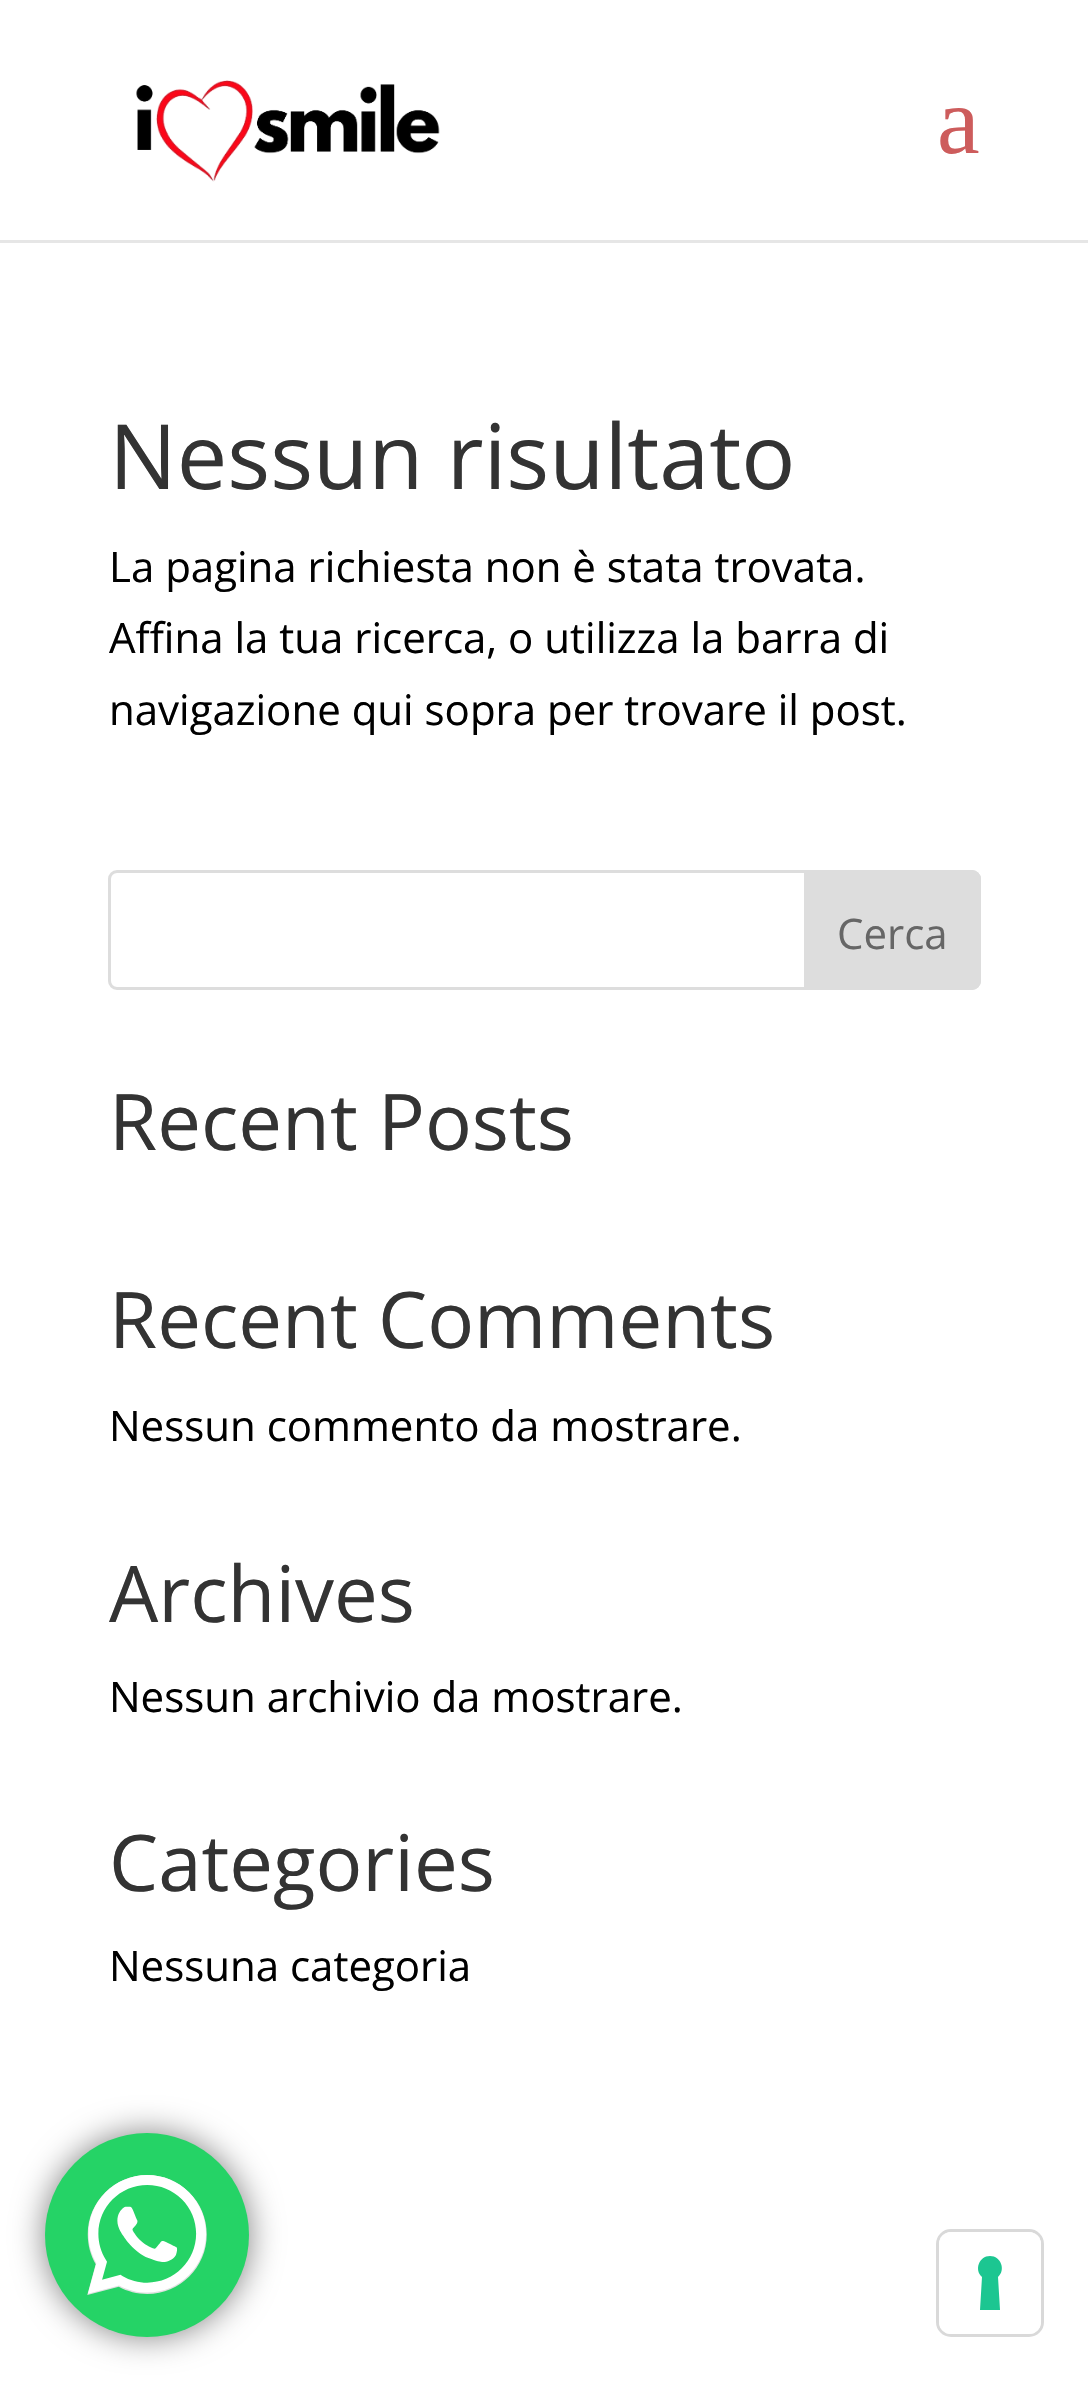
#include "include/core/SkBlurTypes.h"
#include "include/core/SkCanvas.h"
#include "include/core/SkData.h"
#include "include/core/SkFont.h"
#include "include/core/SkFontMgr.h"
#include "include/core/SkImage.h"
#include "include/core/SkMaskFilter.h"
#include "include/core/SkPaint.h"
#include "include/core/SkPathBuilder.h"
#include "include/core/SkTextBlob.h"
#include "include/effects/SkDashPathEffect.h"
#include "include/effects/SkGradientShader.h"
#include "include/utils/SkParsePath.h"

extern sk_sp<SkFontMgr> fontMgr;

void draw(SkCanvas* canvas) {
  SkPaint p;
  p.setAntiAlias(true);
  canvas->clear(SK_ColorWHITE);
  p.setColor(SkColorSetRGB(230, 230, 230));
  canvas->drawRect(SkRect::MakeLTRB(0, 240, 1088, 243), p);
  canvas->drawImageRect(SkImages::DeferredFromEncodedData(SkData::MakeFromFileName("images/1.png")), SkRect::MakeLTRB(136, 80, 440, 182), SkSamplingOptions());
  p.setStyle(SkPaint::kStroke_Style);
  p.setStrokeWidth(3);
  p.setColor(SkColorSetRGB(221, 221, 221));
  canvas->drawRoundRect(SkRect::MakeLTRB(109.5f, 871.5f, 979.5f, 988.5f), 7.5f, 7.5f, p);
  p.setStyle(SkPaint::kFill_Style);
  canvas->drawPath(SkPathBuilder().moveTo(805.5f, 871.5f).lineTo(972, 871.5f).cubicTo(976, 871.5f, 979.5f, 875, 979.5f, 879).lineTo(979.5f, 981).cubicTo(979.5f, 985, 976, 988.5f, 972, 988.5f).lineTo(805.5f, 988.5f).close().detach(), p);
  p.setStyle(SkPaint::kStroke_Style);
  canvas->drawPath(SkPathBuilder().moveTo(805.5f, 871.5f).lineTo(972, 871.5f).cubicTo(976, 871.5f, 979.5f, 875, 979.5f, 879).lineTo(979.5f, 981).cubicTo(979.5f, 985, 976, 988.5f, 972, 988.5f).lineTo(805.5f, 988.5f).close().detach(), p);
  p.setStyle(SkPaint::kFill_Style);
  p.setColor(SkColorSetARGB(128, 0, 0, 0));
  p.setMaskFilter(SkMaskFilter::MakeBlur(kNormal_SkBlurStyle, 16.5f));
  canvas->drawRoundRect(SkRect::MakeLTRB(45, 2133, 249, 2337), 102, 102, p);
  p.setMaskFilter(nullptr);
  p.setColor(SkColorSetRGB(37, 211, 102));
  canvas->drawCircle(147, 2235, 102, p);
  canvas->drawImageRect(SkImages::DeferredFromEncodedData(SkData::MakeFromFileName("images/2.png")), SkRect::MakeLTRB(87, 2175, 207, 2295), SkSamplingOptions());
  p.setStyle(SkPaint::kStroke_Style);
  p.setColor(SkColorSetRGB(217, 217, 217));
  canvas->drawRoundRect(SkRect::MakeLTRB(937.5f, 2230.5f, 1042.5f, 2335.5f), 13.5f, 13.5f, p);
  p.setStyle(SkPaint::kFill_Style);
  p.setColor(SK_ColorWHITE);
  canvas->drawRoundRect(SkRect::MakeLTRB(939, 2232, 1041, 2334), 12, 12, p);
  p.setColor(SkColorSetRGB(28, 198, 145));
  canvas->drawPath(SkPathBuilder(SkPathFillType::kEvenOdd).moveTo(990, 2256).cubicTo(1001, 2256, 1006, 2270, 998, 2277).lineTo(1000, 2310).lineTo(980, 2310).lineTo(982, 2277).cubicTo(974, 2270, 979, 2256, 990, 2256).close().detach(), p);
  SkFont font1(fontMgr->matchFamilyStyle("Liberation Serif", SkFontStyle::Normal()), 96);
  font1.setSubpixel(true);
  p.setColor(SkColorSetRGB(205, 92, 92));
  canvas->drawString("a", 937, 153, font1, p);
  SkFont font2(fontMgr->matchFamilyStyle("Open Sans", SkFontStyle::Normal()), 90);
  font2.setSubpixel(true);
  p.setColor(SkColorSetRGB(51, 51, 51));
  canvas->drawString("Nessun risultato", 109, 489, font2, p);
  SkFont font3(fontMgr->matchFamilyStyle("Open Sans", SkFontStyle::Normal()), 42);
  font3.setSubpixel(true);
  p.setColor(SK_ColorBLACK);
  canvas->drawString("La pagina richiesta non è stata trovata.", 109, 582, font3, p);
  canvas->drawString("Affina la tua ricerca, o utilizza la barra di", 109, 653, font3, p);
  canvas->drawString("navigazione qui sopra per trovare il post.", 109, 725, font3, p);
  p.setColor(SkColorSetRGB(102, 102, 102));
  canvas->drawString("Cerca", 837, 949, font3, p);
  SkFont font4(fontMgr->matchFamilyStyle("Open Sans", SkFontStyle::Normal()), 78);
  font4.setSubpixel(true);
  p.setColor(SkColorSetRGB(51, 51, 51));
  canvas->drawString("Recent Posts", 109, 1150, font4, p);
  canvas->drawString("Recent Comments", 109, 1348, font4, p);
  p.setColor(SK_ColorBLACK);
  canvas->drawString("Nessun commento da mostrare.", 109, 1441, font3, p);
  p.setColor(SkColorSetRGB(51, 51, 51));
  canvas->drawString("Archives", 109, 1622, font4, p);
  p.setColor(SK_ColorBLACK);
  canvas->drawString("Nessun archivio da mostrare.", 109, 1712, font3, p);
  p.setColor(SkColorSetRGB(51, 51, 51));
  canvas->drawString("Categories", 109, 1891, font4, p);
  p.setColor(SK_ColorBLACK);
  canvas->drawString("Nessuna categoria", 109, 1981, font3, p);
}
